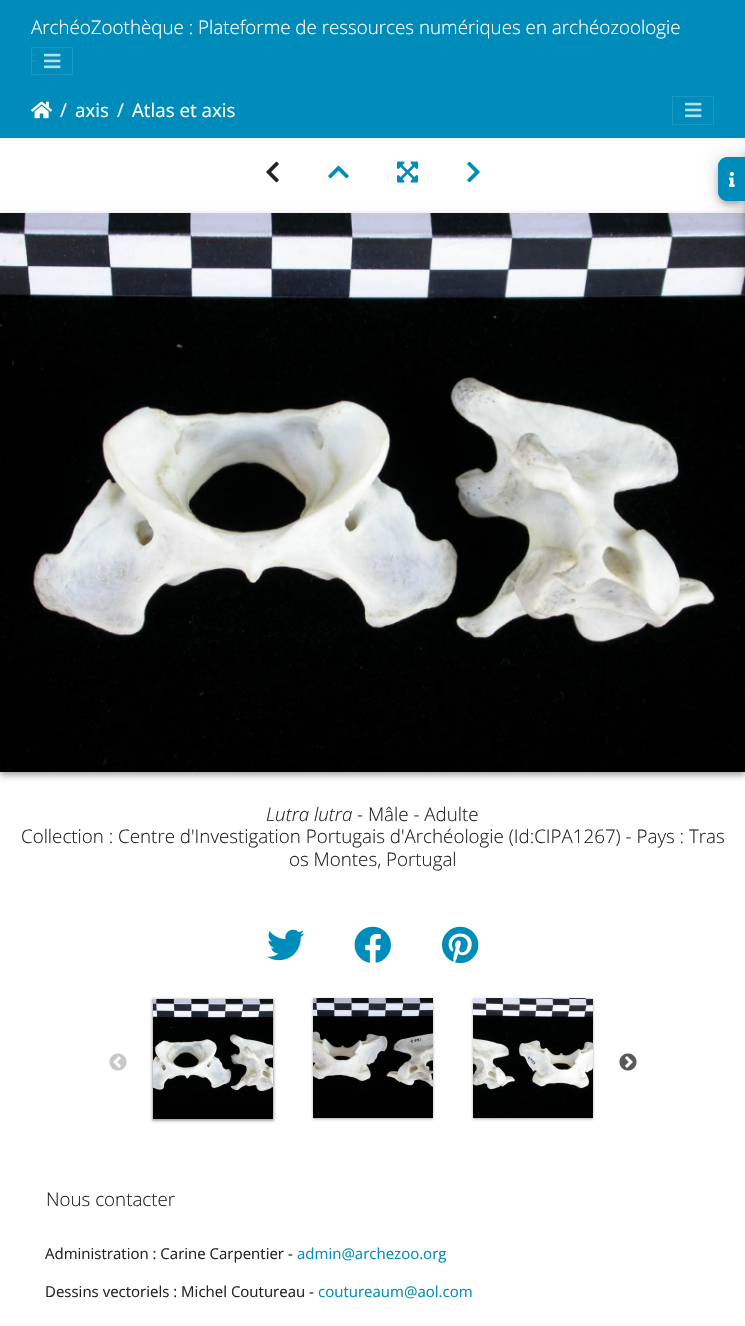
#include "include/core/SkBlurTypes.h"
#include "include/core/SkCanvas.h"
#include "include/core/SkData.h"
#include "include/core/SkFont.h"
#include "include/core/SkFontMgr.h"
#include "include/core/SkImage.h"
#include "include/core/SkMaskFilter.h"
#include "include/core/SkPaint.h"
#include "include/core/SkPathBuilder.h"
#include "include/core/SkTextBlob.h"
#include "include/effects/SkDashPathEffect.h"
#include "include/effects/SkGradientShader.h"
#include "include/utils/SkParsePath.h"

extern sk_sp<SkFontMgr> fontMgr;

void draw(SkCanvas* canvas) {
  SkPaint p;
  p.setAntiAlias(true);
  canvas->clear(SK_ColorWHITE);
  p.setColor(SkColorSetARGB(59, 0, 0, 0));
  p.setMaskFilter(SkMaskFilter::MakeBlur(kNormal_SkBlurStyle, 3));
  canvas->drawRect(SkRect::MakeLTRB(0, 216, 745, 775), p);
  p.setMaskFilter(nullptr);
  p.setColor(SkColorSetARGB(41, 0, 0, 0));
  p.setMaskFilter(SkMaskFilter::MakeBlur(kNormal_SkBlurStyle, 3));
  canvas->drawRect(SkRect::MakeLTRB(0, 216, 745, 775), p);
  p.setMaskFilter(nullptr);
  canvas->drawImageRect(SkImages::DeferredFromEncodedData(SkData::MakeFromFileName("images/8.png")), SkRect::MakeLTRB(0, 213, 745, 772), SkSamplingOptions());
  p.setColor(SkColorSetARGB(31, 0, 0, 0));
  p.setMaskFilter(SkMaskFilter::MakeBlur(kNormal_SkBlurStyle, 9));
  canvas->drawRoundRect(SkRect::MakeLTRB(745, 148, 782, 458), 10, 10, p);
  p.setMaskFilter(nullptr);
  p.setColor(SkColorSetARGB(36, 0, 0, 0));
  p.setMaskFilter(SkMaskFilter::MakeBlur(kNormal_SkBlurStyle, 5));
  canvas->drawRoundRect(SkRect::MakeLTRB(745, 153, 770, 463), 10, 10, p);
  p.setMaskFilter(nullptr);
  p.setColor(SkColorSetARGB(31, 0, 0, 0));
  p.setMaskFilter(SkMaskFilter::MakeBlur(kNormal_SkBlurStyle, 9));
  canvas->drawRoundRect(SkRect::MakeLTRB(718, 158, 745, 202), 10, 10, p);
  p.setMaskFilter(nullptr);
  p.setColor(SkColorSetRGB(0, 140, 186));
  canvas->drawRect(SkRect::MakeLTRB(0, 0, 745, 138), p);
  p.setStyle(SkPaint::kStroke_Style);
  p.setStrokeWidth(1);
  p.setColor(SkColorSetRGB(26, 152, 193));
  canvas->drawRect(SkRect::MakeLTRB(31.5f, 47.5f, 72.5f, 74.5f), p);
  canvas->drawImageRect(SkImages::DeferredFromEncodedData(SkData::MakeFromFileName("images/1.png")), SkRect::MakeLTRB(44, 53, 61, 69), SkSamplingOptions());
  canvas->drawImageRect(SkImages::DeferredFromEncodedData(SkData::MakeFromFileName("images/2.png")), SkRect::MakeLTRB(31, 101, 52, 119), SkSamplingOptions());
  canvas->drawRect(SkRect::MakeLTRB(672.5f, 96.5f, 713.5f, 124.5f), p);
  canvas->drawImageRect(SkImages::DeferredFromEncodedData(SkData::MakeFromFileName("images/1.png")), SkRect::MakeLTRB(685, 102, 702, 118), SkSamplingOptions());
  canvas->drawImageRect(SkImages::DeferredFromEncodedData(SkData::MakeFromFileName("images/3.png")), SkRect::MakeLTRB(266, 161, 279, 183), SkSamplingOptions());
  canvas->drawImageRect(SkImages::DeferredFromEncodedData(SkData::MakeFromFileName("images/4.png")), SkRect::MakeLTRB(328, 165, 349, 179), SkSamplingOptions());
  canvas->drawImageRect(SkImages::DeferredFromEncodedData(SkData::MakeFromFileName("images/5.png")), SkRect::MakeLTRB(397, 161, 418, 183), SkSamplingOptions());
  canvas->drawImageRect(SkImages::DeferredFromEncodedData(SkData::MakeFromFileName("images/6.png")), SkRect::MakeLTRB(467, 161, 480, 183), SkSamplingOptions());
  p.setStyle(SkPaint::kFill_Style);
  p.setColor(SkColorSetARGB(51, 0, 0, 0));
  p.setMaskFilter(SkMaskFilter::MakeBlur(kNormal_SkBlurStyle, 2.5f));
  canvas->drawRoundRect(SkRect::MakeLTRB(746, 151, 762, 459), 9, 9, p);
  p.setMaskFilter(nullptr);
  p.setMaskFilter(SkMaskFilter::MakeBlur(kNormal_SkBlurStyle, 2.5f));
  canvas->drawRoundRect(SkRect::MakeLTRB(719, 161, 744, 203), 9, 9, p);
  p.setMaskFilter(nullptr);
  p.setColor(SkColorSetARGB(36, 0, 0, 0));
  p.setMaskFilter(SkMaskFilter::MakeBlur(kNormal_SkBlurStyle, 5));
  canvas->drawRoundRect(SkRect::MakeLTRB(718, 163, 745, 207), 10, 10, p);
  p.setMaskFilter(nullptr);
  p.setColor(SkColorSetRGB(0, 140, 186));
  canvas->drawPath(SkPathBuilder().moveTo(728, 157).lineTo(745, 157).lineTo(745, 201).lineTo(728, 201).cubicTo(722.5f, 201, 718, 196.5f, 718, 191).lineTo(718, 167).cubicTo(718, 161.5f, 722.5f, 157, 728, 157).close().detach(), p);
  canvas->drawPath(SkPathBuilder(SkPathFillType::kEvenOdd).moveTo(728, 157).lineTo(745, 157).lineTo(745, 201).lineTo(728, 201).cubicTo(722, 201, 718, 197, 718, 191).lineTo(718, 167).cubicTo(718, 161, 722, 157, 728, 157).close().moveTo(728, 158).lineTo(745, 158).lineTo(745, 200).lineTo(728, 200).cubicTo(723, 200, 719, 196, 719, 191).lineTo(719, 167).cubicTo(719, 162, 723, 158, 728, 158).close().detach(), p);
  canvas->drawImageRect(SkImages::DeferredFromEncodedData(SkData::MakeFromFileName("images/7.png")), SkRect::MakeLTRB(729, 171, 735, 187), SkSamplingOptions());
  canvas->drawImageRect(SkImages::DeferredFromEncodedData(SkData::MakeFromFileName("images/9.png")), SkRect::MakeLTRB(267, 929, 305, 961), SkSamplingOptions());
  canvas->drawImageRect(SkImages::DeferredFromEncodedData(SkData::MakeFromFileName("images/10.png")), SkRect::MakeLTRB(354, 926, 391, 963), SkSamplingOptions());
  canvas->drawImageRect(SkImages::DeferredFromEncodedData(SkData::MakeFromFileName("images/11.png")), SkRect::MakeLTRB(442, 926, 479, 964), SkSamplingOptions());
  canvas->drawImageRect(SkImages::DeferredFromEncodedData(SkData::MakeFromFileName("images/12.png")), SkRect::MakeLTRB(109, 1053, 127, 1071), SkSamplingOptions());
  p.setColor(SkColorSetARGB(31, 0, 0, 0));
  p.setMaskFilter(SkMaskFilter::MakeBlur(kNormal_SkBlurStyle, 1.5f));
  canvas->drawRect(SkRect::MakeLTRB(152, 999, 274, 1121), p);
  p.setMaskFilter(nullptr);
  p.setColor(SkColorSetARGB(61, 0, 0, 0));
  p.setMaskFilter(SkMaskFilter::MakeBlur(kNormal_SkBlurStyle, 1));
  canvas->drawRect(SkRect::MakeLTRB(152, 999, 274, 1121), p);
  p.setMaskFilter(nullptr);
  canvas->drawImageRect(SkImages::DeferredFromEncodedData(SkData::MakeFromFileName("images/13.png")), SkRect::MakeLTRB(153, 999, 273, 1119), SkSamplingOptions());
  p.setColor(SkColorSetARGB(31, 0, 0, 0));
  p.setMaskFilter(SkMaskFilter::MakeBlur(kNormal_SkBlurStyle, 1.5f));
  canvas->drawRect(SkRect::MakeLTRB(313, 999, 433, 1119), p);
  p.setMaskFilter(nullptr);
  p.setColor(SkColorSetARGB(61, 0, 0, 0));
  p.setMaskFilter(SkMaskFilter::MakeBlur(kNormal_SkBlurStyle, 1));
  canvas->drawRect(SkRect::MakeLTRB(313, 999, 433, 1119), p);
  p.setMaskFilter(nullptr);
  canvas->drawImageRect(SkImages::DeferredFromEncodedData(SkData::MakeFromFileName("images/14.png")), SkRect::MakeLTRB(313, 998, 433, 1118), SkSamplingOptions());
  p.setColor(SkColorSetARGB(31, 0, 0, 0));
  p.setMaskFilter(SkMaskFilter::MakeBlur(kNormal_SkBlurStyle, 1.5f));
  canvas->drawRect(SkRect::MakeLTRB(473, 999, 593, 1119), p);
  p.setMaskFilter(nullptr);
  p.setColor(SkColorSetARGB(61, 0, 0, 0));
  p.setMaskFilter(SkMaskFilter::MakeBlur(kNormal_SkBlurStyle, 1));
  canvas->drawRect(SkRect::MakeLTRB(473, 999, 593, 1119), p);
  p.setMaskFilter(nullptr);
  canvas->drawImageRect(SkImages::DeferredFromEncodedData(SkData::MakeFromFileName("images/15.png")), SkRect::MakeLTRB(473, 998, 593, 1118), SkSamplingOptions());
  canvas->drawImageRect(SkImages::DeferredFromEncodedData(SkData::MakeFromFileName("images/16.png")), SkRect::MakeLTRB(619, 1053, 637, 1071), SkSamplingOptions());
  SkFont font1(fontMgr->matchFamilyStyle("Open Sans", SkFontStyle(300, SkFontStyle::kNormal_Width, SkFontStyle::kUpright_Slant)), 18.75f);
  font1.setSubpixel(true);
  p.setColor(SK_ColorWHITE);
  canvas->drawString("ArchéoZoothèque : Plateforme de ressources numériques en archéozoologie", 31, 34, font1, p);
  SkFont font2(fontMgr->matchFamilyStyle("Open Sans", SkFontStyle::Normal()), 18.75f);
  font2.setSubpixel(true);
  canvas->drawString("/", 60, 117, font2, p);
  canvas->drawString("axis", 75, 117, font2, p);
  canvas->drawString("/", 117, 117, font2, p);
  canvas->drawString("Atlas et axis", 132, 117, font2, p);
  SkFont font3(fontMgr->matchFamilyStyle("Open Sans", SkFontStyle(300, SkFontStyle::kNormal_Width, SkFontStyle::kItalic_Slant)), 18.75f);
  font3.setSubpixel(true);
  p.setColor(SkColorSetRGB(34, 34, 34));
  canvas->drawString("Lutra lutra", 266, 821, font3, p);
  canvas->drawString("- Mâle - Adulte", 357, 821, font1, p);
  canvas->drawString("Collection : Centre d'Investigation Portugais d'Archéologie (Id:CIPA1267) - Pays : Tras", 21, 843, font1, p);
  canvas->drawString("os Montes, Portugal", 289, 866, font1, p);
  canvas->drawString("Nous contacter", 46, 1206, font1, p);
  SkFont font4(fontMgr->matchFamilyStyle("Open Sans", SkFontStyle::Normal()), 15);
  font4.setSubpixel(true);
  canvas->drawString("Administration : Carine Carpentier -", 45, 1259, font4, p);
  p.setColor(SkColorSetRGB(0, 140, 186));
  canvas->drawString("admin@archezoo.org", 297, 1259, font4, p);
  p.setColor(SkColorSetRGB(34, 34, 34));
  canvas->drawString("Dessins vectoriels : Michel Coutureau -", 45, 1297, font4, p);
  p.setColor(SkColorSetRGB(0, 140, 186));
  canvas->drawString("coutureaum@aol.com", 318, 1297, font4, p);
}
